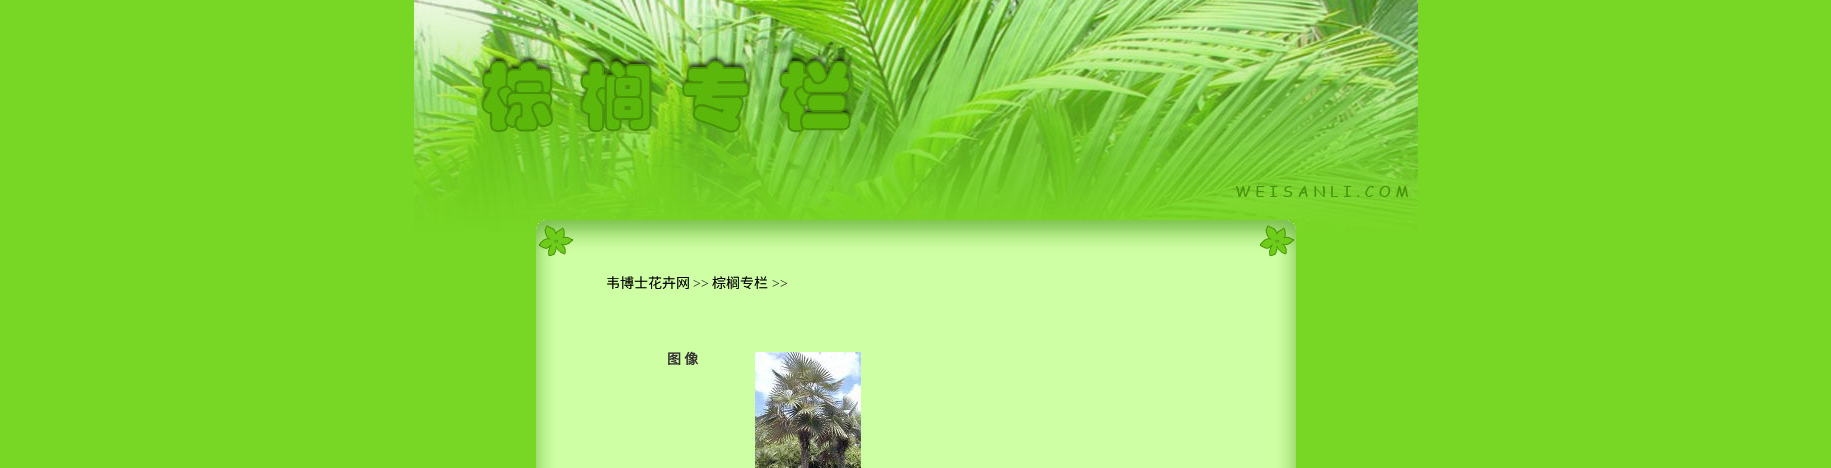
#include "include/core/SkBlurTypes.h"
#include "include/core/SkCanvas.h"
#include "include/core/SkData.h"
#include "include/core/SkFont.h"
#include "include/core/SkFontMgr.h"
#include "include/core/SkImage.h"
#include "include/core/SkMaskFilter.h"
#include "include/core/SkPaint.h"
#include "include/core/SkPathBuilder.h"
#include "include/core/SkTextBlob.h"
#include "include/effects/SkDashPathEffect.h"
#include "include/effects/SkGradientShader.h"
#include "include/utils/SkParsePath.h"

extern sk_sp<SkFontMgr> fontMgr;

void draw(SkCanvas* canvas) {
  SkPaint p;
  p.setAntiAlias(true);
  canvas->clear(SkColorSetRGB(120, 215, 37));
  canvas->drawImageRect(SkImages::DeferredFromEncodedData(SkData::MakeFromFileName("images/1.png")), SkRect::MakeLTRB(414, 0, 1418, 232), SkSamplingOptions());
  canvas->drawImageRect(SkImages::DeferredFromEncodedData(SkData::MakeFromFileName("images/2.png")), SkRect::MakeLTRB(536, 220, 1296, 260), SkSamplingOptions());
  canvas->drawImageRect(SkImages::DeferredFromEncodedData(SkData::MakeFromFileName("images/3.png")), SkRect::MakeLTRB(536, 260, 1296, 468), SkSamplingOptions());
  canvas->drawImageRect(SkImages::DeferredFromEncodedData(SkData::MakeFromFileName("images/4.png")), SkRect::MakeLTRB(755, 352, 861, 468), SkSamplingOptions());
  SkFont font1(fontMgr->matchFamilyStyle("Noto Sans CJK SC", SkFontStyle::Normal()), 14);
  font1.setSubpixel(true);
  p.setColor(SK_ColorBLACK);
  canvas->drawString("韦博士花卉网", 606, 288, font1, p);
  SkFont font2(fontMgr->matchFamilyStyle("Liberation Serif", SkFontStyle::Normal()), 14);
  font2.setSubpixel(true);
  p.setColor(SkColorSetRGB(51, 51, 51));
  canvas->drawString(">>", 693, 288, font2, p);
  p.setColor(SK_ColorBLACK);
  canvas->drawString("棕榈专栏", 712, 288, font1, p);
  p.setColor(SkColorSetRGB(51, 51, 51));
  canvas->drawString(">>", 772, 288, font2, p);
  SkFont font3(fontMgr->matchFamilyStyle("Noto Sans CJK SC", SkFontStyle::Bold()), 14);
  font3.setSubpixel(true);
  canvas->drawString("图 像", 667, 364, font3, p);
}
